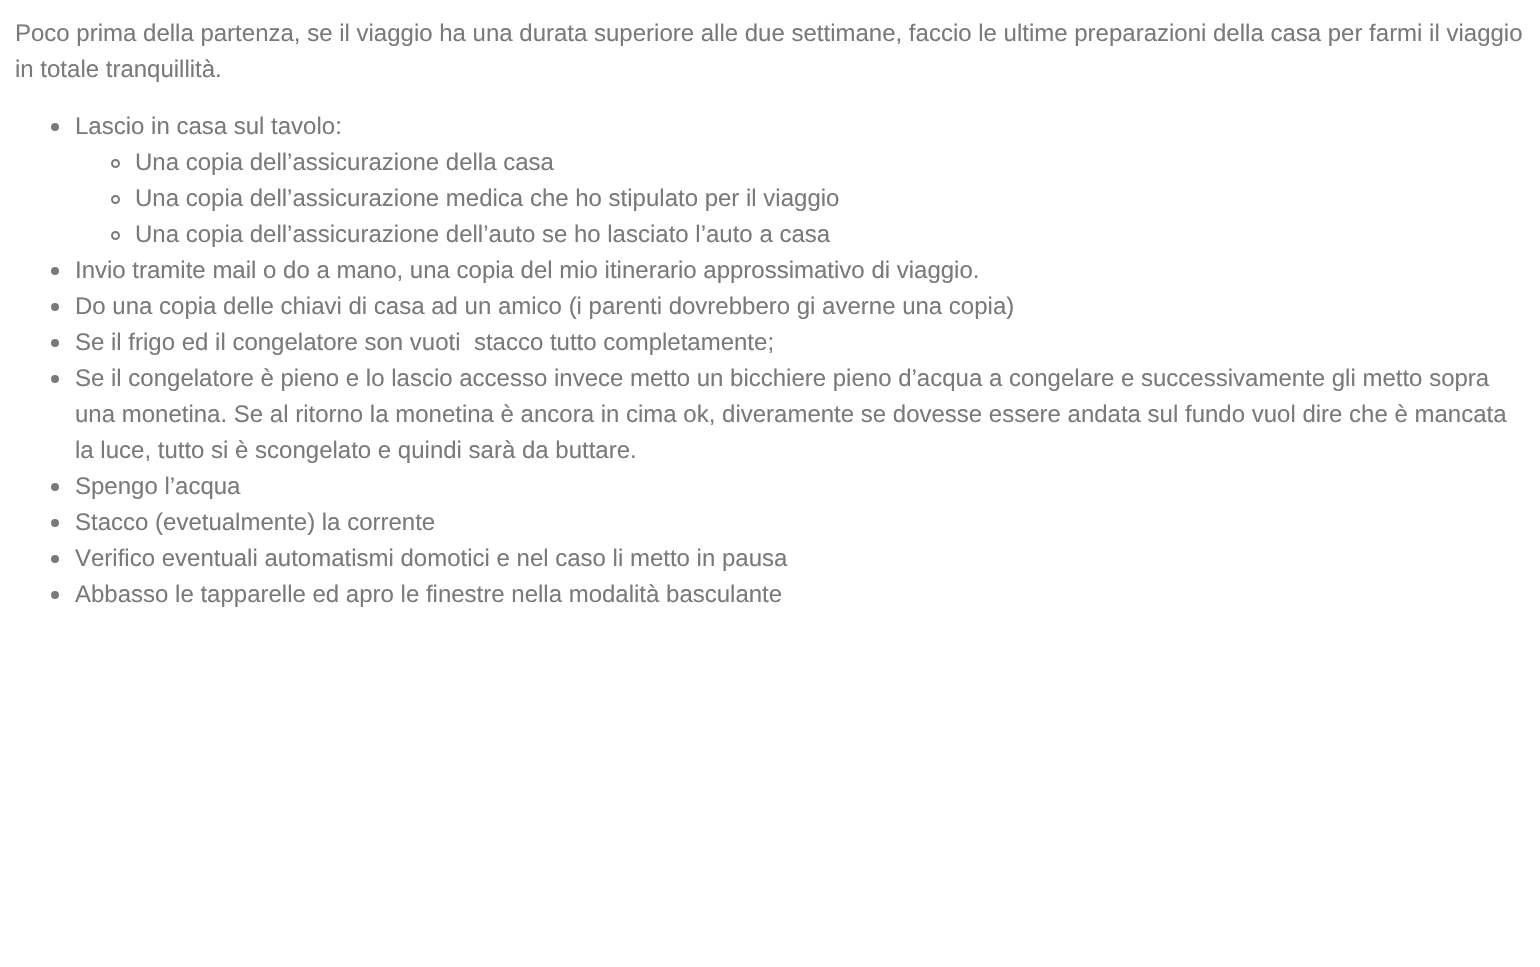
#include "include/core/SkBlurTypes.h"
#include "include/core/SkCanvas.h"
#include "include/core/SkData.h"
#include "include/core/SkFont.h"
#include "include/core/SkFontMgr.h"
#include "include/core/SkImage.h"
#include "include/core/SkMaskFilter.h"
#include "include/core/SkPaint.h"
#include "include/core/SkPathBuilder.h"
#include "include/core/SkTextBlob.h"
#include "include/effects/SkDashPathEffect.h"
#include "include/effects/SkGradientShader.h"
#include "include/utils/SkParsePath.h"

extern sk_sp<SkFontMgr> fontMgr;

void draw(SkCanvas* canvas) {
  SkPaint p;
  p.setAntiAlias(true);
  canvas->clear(SK_ColorWHITE);
  p.setColor(SkColorSetRGB(122, 122, 122));
  canvas->drawCircle(55, 127, 4, p);
  p.setStyle(SkPaint::kStroke_Style);
  p.setStrokeWidth(2);
  canvas->drawCircle(115.5f, 163.5f, 3.5f, p);
  canvas->drawCircle(115.5f, 199.5f, 3.5f, p);
  canvas->drawCircle(115.5f, 235.5f, 3.5f, p);
  p.setStyle(SkPaint::kFill_Style);
  canvas->drawCircle(55, 271, 4, p);
  canvas->drawCircle(55, 307, 4, p);
  canvas->drawCircle(55, 343, 4, p);
  canvas->drawCircle(55, 379, 4, p);
  canvas->drawCircle(55, 487, 4, p);
  canvas->drawCircle(55, 523, 4, p);
  canvas->drawCircle(55, 559, 4, p);
  canvas->drawCircle(55, 595, 4, p);
  SkFont font1(fontMgr->matchFamilyStyle("Liberation Sans", SkFontStyle::Normal()), 24);
  font1.setSubpixel(true);
  canvas->drawString("Poco prima della partenza, se il viaggio ha una durata superiore alle due settimane, faccio le ultime preparazioni della casa per farmi il viaggio", 15, 41, font1, p);
  canvas->drawString("in totale tranquillità.", 15, 77, font1, p);
  canvas->drawString("Lascio in casa sul tavolo:", 75, 134, font1, p);
  canvas->drawString("Una copia dell’assicurazione della casa", 135, 170, font1, p);
  canvas->drawString("Una copia dell’assicurazione medica che ho stipulato per il viaggio", 135, 206, font1, p);
  canvas->drawString("Una copia dell’assicurazione dell’auto se ho lasciato l’auto a casa", 135, 242, font1, p);
  canvas->drawString("Invio tramite mail o do a mano, una copia del mio itinerario approssimativo di viaggio.", 75, 278, font1, p);
  canvas->drawString("Do una copia delle chiavi di casa ad un amico (i parenti dovrebbero gi averne una copia)", 75, 314, font1, p);
  canvas->drawString("Se il frigo ed il congelatore son vuoti  stacco tutto completamente;", 75, 350, font1, p);
  canvas->drawString("Se il congelatore è pieno e lo lascio accesso invece metto un bicchiere pieno d’acqua a congelare e successivamente gli metto sopra", 75, 386, font1, p);
  canvas->drawString("una monetina. Se al ritorno la monetina è ancora in cima ok, diveramente se dovesse essere andata sul fundo vuol dire che è mancata", 75, 422, font1, p);
  canvas->drawString("la luce, tutto si è scongelato e quindi sarà da buttare.", 75, 458, font1, p);
  canvas->drawString("Spengo l’acqua", 75, 494, font1, p);
  canvas->drawString("Stacco (evetualmente) la corrente", 75, 530, font1, p);
  canvas->drawString("Verifico eventuali automatismi domotici e nel caso li metto in pausa", 75, 566, font1, p);
  canvas->drawString("Abbasso le tapparelle ed apro le finestre nella modalità basculante", 75, 602, font1, p);
}
